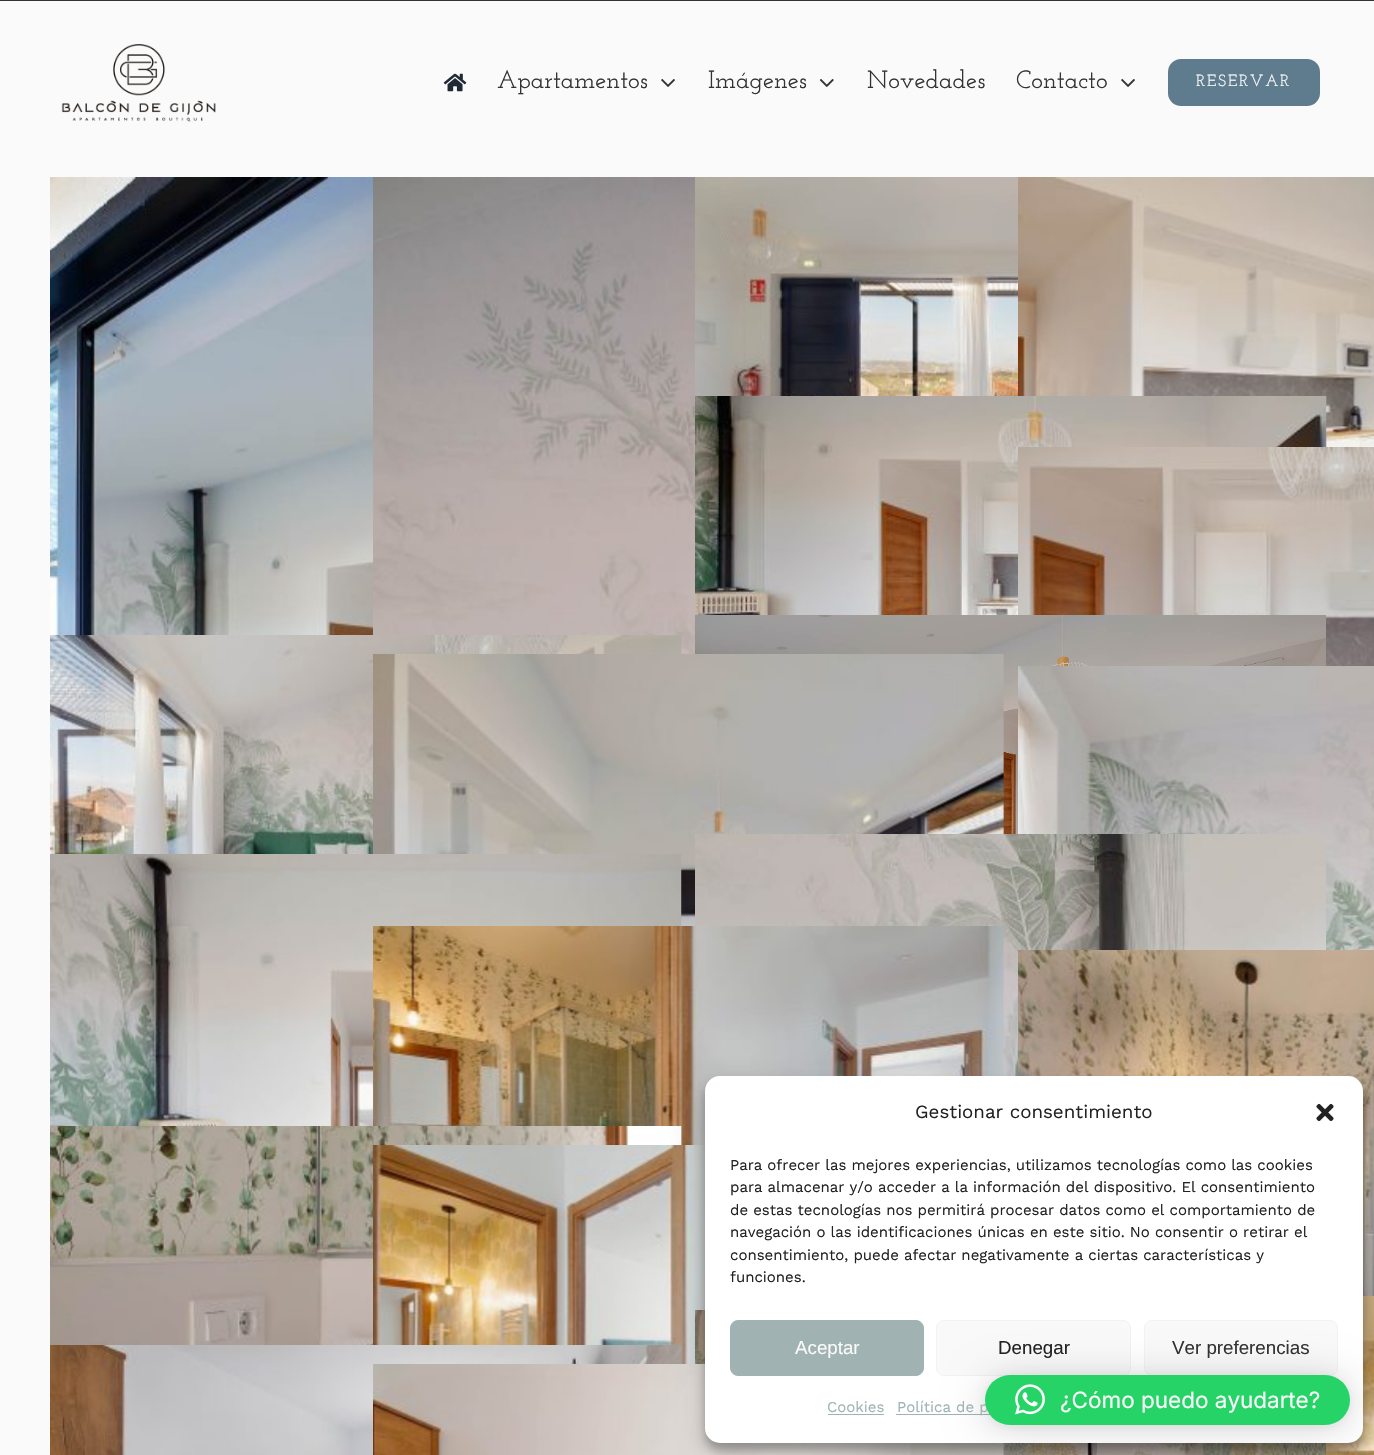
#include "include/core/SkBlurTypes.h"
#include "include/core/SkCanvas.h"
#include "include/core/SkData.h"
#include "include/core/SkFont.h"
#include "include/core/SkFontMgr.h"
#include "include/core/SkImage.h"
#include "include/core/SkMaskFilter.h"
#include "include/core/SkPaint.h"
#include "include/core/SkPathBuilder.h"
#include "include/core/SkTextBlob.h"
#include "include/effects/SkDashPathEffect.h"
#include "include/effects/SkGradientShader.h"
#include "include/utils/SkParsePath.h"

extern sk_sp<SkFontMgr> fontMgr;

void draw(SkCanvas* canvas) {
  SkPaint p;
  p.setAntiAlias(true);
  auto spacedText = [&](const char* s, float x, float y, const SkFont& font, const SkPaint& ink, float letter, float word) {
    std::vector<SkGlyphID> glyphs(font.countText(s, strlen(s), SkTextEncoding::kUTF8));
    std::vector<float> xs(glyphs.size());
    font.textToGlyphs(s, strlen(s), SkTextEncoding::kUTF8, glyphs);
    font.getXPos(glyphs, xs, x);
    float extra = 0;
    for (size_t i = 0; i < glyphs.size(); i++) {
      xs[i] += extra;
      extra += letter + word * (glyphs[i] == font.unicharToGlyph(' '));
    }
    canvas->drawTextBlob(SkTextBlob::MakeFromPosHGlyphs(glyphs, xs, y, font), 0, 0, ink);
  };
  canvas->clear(SkColorSetRGB(250, 250, 250));
  p.setColor(SkColorSetRGB(51, 51, 51));
  canvas->drawRect(SkRect::MakeLTRB(0, 0, 1374, 1), p);
  canvas->drawImageRect(SkImages::DeferredFromEncodedData(SkData::MakeFromFileName("images/1.png")), SkRect::MakeLTRB(61, 44, 216, 122), SkSamplingOptions());
  canvas->drawImageRect(SkImages::DeferredFromEncodedData(SkData::MakeFromFileName("images/2.png")), SkRect::MakeLTRB(443, 73, 467, 92), SkSamplingOptions());
  canvas->drawImageRect(SkImages::DeferredFromEncodedData(SkData::MakeFromFileName("images/3.png")), SkRect::MakeLTRB(661, 79, 675, 87), SkSamplingOptions());
  canvas->drawImageRect(SkImages::DeferredFromEncodedData(SkData::MakeFromFileName("images/4.png")), SkRect::MakeLTRB(819, 79, 834, 87), SkSamplingOptions());
  canvas->drawImageRect(SkImages::DeferredFromEncodedData(SkData::MakeFromFileName("images/3.png")), SkRect::MakeLTRB(1121, 79, 1135, 87), SkSamplingOptions());
  p.setColor(SkColorSetRGB(94, 124, 141));
  canvas->drawRoundRect(SkRect::MakeLTRB(1168, 59, 1320, 106), 13, 13, p);
  canvas->drawImageRect(SkImages::DeferredFromEncodedData(SkData::MakeFromFileName("images/5.png")), SkRect::MakeLTRB(50, 177, 373, 635), SkSamplingOptions());
  canvas->drawImageRect(SkImages::DeferredFromEncodedData(SkData::MakeFromFileName("images/6.png")), SkRect::MakeLTRB(373, 177, 695, 654), SkSamplingOptions());
  canvas->drawImageRect(SkImages::DeferredFromEncodedData(SkData::MakeFromFileName("images/7.png")), SkRect::MakeLTRB(695, 177, 1018, 396), SkSamplingOptions());
  canvas->drawImageRect(SkImages::DeferredFromEncodedData(SkData::MakeFromFileName("images/8.png")), SkRect::MakeLTRB(1018, 177, 1374, 447), SkSamplingOptions());
  canvas->drawImageRect(SkImages::DeferredFromEncodedData(SkData::MakeFromFileName("images/9.png")), SkRect::MakeLTRB(695, 396, 1327, 615), SkSamplingOptions());
  canvas->drawImageRect(SkImages::DeferredFromEncodedData(SkData::MakeFromFileName("images/10.png")), SkRect::MakeLTRB(1018, 447, 1374, 666), SkSamplingOptions());
  canvas->drawImageRect(SkImages::DeferredFromEncodedData(SkData::MakeFromFileName("images/11.png")), SkRect::MakeLTRB(50, 635, 682, 854), SkSamplingOptions());
  canvas->drawImageRect(SkImages::DeferredFromEncodedData(SkData::MakeFromFileName("images/13.png")), SkRect::MakeLTRB(695, 615, 1326, 834), SkSamplingOptions());
  canvas->drawImageRect(SkImages::DeferredFromEncodedData(SkData::MakeFromFileName("images/12.png")), SkRect::MakeLTRB(373, 654, 1004, 926), SkSamplingOptions());
  canvas->drawImageRect(SkImages::DeferredFromEncodedData(SkData::MakeFromFileName("images/14.png")), SkRect::MakeLTRB(1018, 666, 1374, 950), SkSamplingOptions());
  canvas->drawImageRect(SkImages::DeferredFromEncodedData(SkData::MakeFromFileName("images/15.png")), SkRect::MakeLTRB(50, 854, 682, 1126), SkSamplingOptions());
  canvas->drawImageRect(SkImages::DeferredFromEncodedData(SkData::MakeFromFileName("images/17.png")), SkRect::MakeLTRB(695, 834, 1326, 1076), SkSamplingOptions());
  canvas->drawImageRect(SkImages::DeferredFromEncodedData(SkData::MakeFromFileName("images/16.png")), SkRect::MakeLTRB(373, 926, 1004, 1145), SkSamplingOptions());
  canvas->drawImageRect(SkImages::DeferredFromEncodedData(SkData::MakeFromFileName("images/18.png")), SkRect::MakeLTRB(50, 1126, 682, 1345), SkSamplingOptions());
  canvas->drawImageRect(SkImages::DeferredFromEncodedData(SkData::MakeFromFileName("images/19.png")), SkRect::MakeLTRB(1018, 950, 1374, 1296), SkSamplingOptions());
  canvas->drawImageRect(SkImages::DeferredFromEncodedData(SkData::MakeFromFileName("images/20.png")), SkRect::MakeLTRB(373, 1145, 705, 1364), SkSamplingOptions());
  canvas->drawImageRect(SkImages::DeferredFromEncodedData(SkData::MakeFromFileName("images/21.png")), SkRect::MakeLTRB(695, 1310, 1326, 1455), SkSamplingOptions());
  canvas->drawImageRect(SkImages::DeferredFromEncodedData(SkData::MakeFromFileName("images/22.png")), SkRect::MakeLTRB(1326, 1296, 1374, 1455), SkSamplingOptions());
  canvas->drawImageRect(SkImages::DeferredFromEncodedData(SkData::MakeFromFileName("images/23.png")), SkRect::MakeLTRB(50, 1345, 682, 1455), SkSamplingOptions());
  canvas->drawImageRect(SkImages::DeferredFromEncodedData(SkData::MakeFromFileName("images/24.png")), SkRect::MakeLTRB(373, 1364, 1004, 1455), SkSamplingOptions());
  p.setColor(SkColorSetARGB(59, 0, 0, 0));
  p.setMaskFilter(SkMaskFilter::MakeBlur(kNormal_SkBlurStyle, 4));
  canvas->drawRoundRect(SkRect::MakeLTRB(705, 1084, 1363, 1450), 15, 15, p);
  p.setMaskFilter(nullptr);
  p.setColor(SkColorSetARGB(48, 0, 0, 0));
  p.setMaskFilter(SkMaskFilter::MakeBlur(kNormal_SkBlurStyle, 12.5f));
  canvas->drawRoundRect(SkRect::MakeLTRB(705, 1089, 1363, 1455), 15, 15, p);
  p.setMaskFilter(nullptr);
  p.setColor(SK_ColorWHITE);
  canvas->drawRoundRect(SkRect::MakeLTRB(705, 1076, 1363, 1443), 15, 15, p);
  canvas->drawImageRect(SkImages::DeferredFromEncodedData(SkData::MakeFromFileName("images/25.png")), SkRect::MakeLTRB(1316, 1103, 1334, 1121), SkSamplingOptions());
  p.setColor(SkColorSetRGB(160, 178, 178));
  canvas->drawRoundRect(SkRect::MakeLTRB(730.5f, 1320.5f, 923.5f, 1375.5f), 7.5f, 7.5f, p);
  p.setStyle(SkPaint::kStroke_Style);
  p.setStrokeWidth(1);
  canvas->drawRoundRect(SkRect::MakeLTRB(730.5f, 1320.5f, 923.5f, 1375.5f), 7.5f, 7.5f, p);
  p.setStyle(SkPaint::kFill_Style);
  p.setColor(SkColorSetRGB(249, 249, 249));
  canvas->drawRoundRect(SkRect::MakeLTRB(936.5f, 1320.5f, 1130.5f, 1375.5f), 7.5f, 7.5f, p);
  p.setStyle(SkPaint::kStroke_Style);
  p.setColor(SkColorSetRGB(242, 242, 242));
  canvas->drawRoundRect(SkRect::MakeLTRB(936.5f, 1320.5f, 1130.5f, 1375.5f), 7.5f, 7.5f, p);
  p.setStyle(SkPaint::kFill_Style);
  p.setColor(SkColorSetRGB(249, 249, 249));
  canvas->drawRoundRect(SkRect::MakeLTRB(1144.5f, 1320.5f, 1337.5f, 1375.5f), 7.5f, 7.5f, p);
  p.setStyle(SkPaint::kStroke_Style);
  p.setColor(SkColorSetRGB(242, 242, 242));
  canvas->drawRoundRect(SkRect::MakeLTRB(1144.5f, 1320.5f, 1337.5f, 1375.5f), 7.5f, 7.5f, p);
  p.setStyle(SkPaint::kFill_Style);
  p.setColor(SkColorSetRGB(160, 178, 178));
  canvas->drawRect(SkRect::MakeLTRB(828, 1414, 884, 1415), p);
  canvas->drawRect(SkRect::MakeLTRB(896, 1414, 990, 1415), p);
  p.setColor(SkColorSetARGB(41, 0, 0, 0));
  p.setMaskFilter(SkMaskFilter::MakeBlur(kNormal_SkBlurStyle, 20));
  canvas->drawRoundRect(SkRect::MakeLTRB(985, 1378, 1350, 1428), 25, 25, p);
  p.setMaskFilter(nullptr);
  p.setColor(SkColorSetARGB(15, 0, 0, 0));
  p.setMaskFilter(SkMaskFilter::MakeBlur(kNormal_SkBlurStyle, 4));
  canvas->drawRoundRect(SkRect::MakeLTRB(985, 1376, 1350, 1426), 25, 25, p);
  p.setMaskFilter(nullptr);
  SkFont font1(fontMgr->matchFamilyStyle("Josefin Slab", SkFontStyle(500, SkFontStyle::kNormal_Width, SkFontStyle::kUpright_Slant)), 25);
  font1.setSubpixel(true);
  p.setColor(SkColorSetRGB(51, 51, 51));
  canvas->drawString("Apartamentos", 497, 88, font1, p);
  canvas->drawString("Imágenes", 708, 88, font1, p);
  canvas->drawString("Novedades", 867, 88, font1, p);
  canvas->drawString("Contacto", 1016, 88, font1, p);
  SkFont font2(fontMgr->matchFamilyStyle("Josefin Slab", SkFontStyle(500, SkFontStyle::kNormal_Width, SkFontStyle::kUpright_Slant)), 16.25f);
  font2.setSubpixel(true);
  p.setColor(SkColorSetRGB(250, 250, 250));
  spacedText("RESERVAR", 1196, 86, font2, p, 1.75f, 0);
  SkFont font3(fontMgr->matchFamilyStyle("Work Sans", SkFontStyle::Normal()), 18.75f);
  font3.setSubpixel(true);
  p.setColor(SkColorSetRGB(34, 34, 34));
  canvas->drawString("Gestionar consentimiento", 915, 1118, font3, p);
  SkFont font4(fontMgr->matchFamilyStyle("Work Sans", SkFontStyle::Normal()), 15);
  font4.setSubpixel(true);
  canvas->drawString("Para ofrecer las mejores experiencias, utilizamos tecnologías como las cookies", 730, 1170, font4, p);
  canvas->drawString("para almacenar y/o acceder a la información del dispositivo. El consentimiento", 730, 1192, font4, p);
  canvas->drawString("de estas tecnologías nos permitirá procesar datos como el comportamiento de", 730, 1215, font4, p);
  canvas->drawString("navegación o las identificaciones únicas en este sitio. No consentir o retirar el", 730, 1237, font4, p);
  canvas->drawString("consentimiento, puede afectar negativamente a ciertas características y", 730, 1260, font4, p);
  canvas->drawString("funciones.", 730, 1282, font4, p);
  SkFont font5(fontMgr->matchFamilyStyle("Liberation Sans", SkFontStyle::Normal()), 18.75f);
  font5.setSubpixel(true);
  p.setColor(SkColorSetRGB(250, 250, 250));
  canvas->drawString("Aceptar", 795, 1354, font5, p);
  p.setColor(SkColorSetRGB(34, 34, 34));
  canvas->drawString("Denegar", 998, 1354, font5, p);
  p.setColor(SkColorSetRGB(51, 51, 51));
  canvas->drawString("Ver preferencias", 1172, 1354, font5, p);
  p.setColor(SkColorSetRGB(160, 178, 178));
  canvas->drawString("Cookies", 827, 1412, font4, p);
  canvas->drawString("Política de p", 897, 1412, font4, p);
  p.setColor(SkColorSetRGB(37, 211, 102));
  canvas->drawRoundRect(SkRect::MakeLTRB(985, 1375, 1350, 1425), 25, 25, p);
  canvas->drawImageRect(SkImages::DeferredFromEncodedData(SkData::MakeFromFileName("images/26.png")), SkRect::MakeLTRB(1015, 1384, 1045, 1415), SkSamplingOptions());
  SkFont font6(fontMgr->matchFamilyStyle("Inter", SkFontStyle::Normal()), 22.5f);
  font6.setSubpixel(true);
  p.setColor(SkColorSetRGB(250, 250, 250));
  canvas->drawString("¿Cómo puedo ayudarte?", 1060, 1408, font6, p);
}
